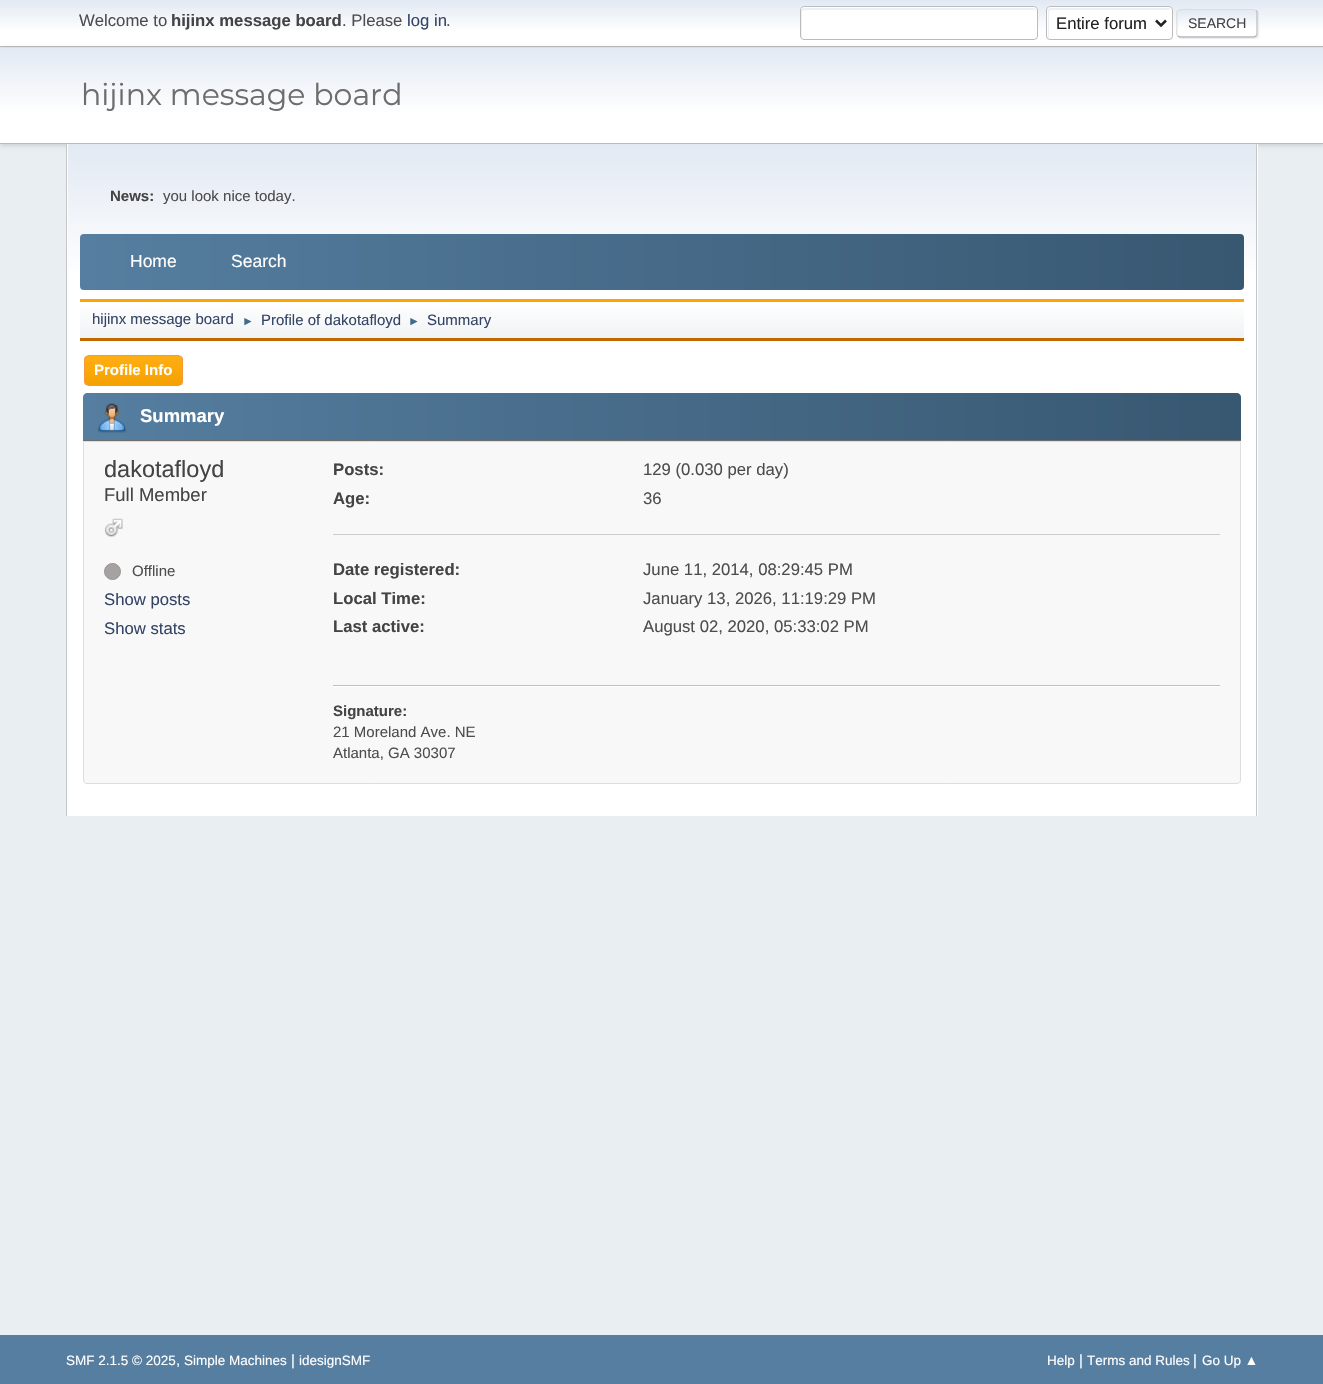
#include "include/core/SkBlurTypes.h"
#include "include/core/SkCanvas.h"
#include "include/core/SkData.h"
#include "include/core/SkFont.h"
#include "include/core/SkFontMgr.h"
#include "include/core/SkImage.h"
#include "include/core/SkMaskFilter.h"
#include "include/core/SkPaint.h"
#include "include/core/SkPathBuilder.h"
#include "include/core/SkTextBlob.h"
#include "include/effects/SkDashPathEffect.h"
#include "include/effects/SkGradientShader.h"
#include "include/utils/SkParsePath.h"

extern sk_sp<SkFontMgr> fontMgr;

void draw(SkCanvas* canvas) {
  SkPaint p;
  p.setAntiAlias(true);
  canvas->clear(SkColorSetRGB(233, 238, 242));
  {
    const SkColor colors[] = {SkColorSetRGB(226, 233, 243), SK_ColorWHITE};
    const float stops[] = {0, 0.7f};
    const SkPoint ends[] = {{662, 0}, {662, 46}};
    p.setShader(SkGradientShader::MakeLinear(ends, colors, stops, 2, SkTileMode::kClamp));
    p.setAlpha(255);
  }
  canvas->drawRect(SkRect::MakeLTRB(0, 0, 1323, 46), p);
  {
    const SkColor colors[] = {SkColorSetRGB(226, 233, 243), SK_ColorWHITE};
    const float stops[] = {0, 0.7f};
    const SkPoint ends[] = {{662, 46}, {662, 93}};
    p.setShader(SkGradientShader::MakeLinear(ends, colors, stops, 2, SkTileMode::kClamp));
    p.setAlpha(255);
  }
  canvas->drawRect(SkRect::MakeLTRB(0, 47, 1323, 48), p);
  p.setShader(nullptr);
  p.setColor(SkColorSetRGB(187, 187, 187));
  canvas->drawRect(SkRect::MakeLTRB(0, 46, 1323, 47), p);
  p.setColor(SK_ColorWHITE);
  canvas->drawRoundRect(SkRect::MakeLTRB(800, 6, 1038, 40), 4, 4, p);
  p.setColor(SkColorSetRGB(236, 241, 248));
  canvas->drawPath(SkPathBuilder().moveTo(805, 10).lineTo(1036, 10).cubicTo(1036, 9, 1035, 8, 1034, 8).lineTo(804, 8).cubicTo(799, 8, 801, 17, 801, 19).cubicTo(801, 22, 800, 37, 802, 39).lineTo(802, 12).cubicTo(802, 11, 804, 10, 805, 10).close().detach(), p);
  p.setStyle(SkPaint::kStroke_Style);
  p.setStrokeWidth(1);
  p.setColor(SkColorSetRGB(187, 187, 187));
  canvas->drawRoundRect(SkRect::MakeLTRB(800.5f, 6.5f, 1037.5f, 39.5f), 3.5f, 3.5f, p);
  p.setStyle(SkPaint::kFill_Style);
  p.setColor(SK_ColorWHITE);
  canvas->drawRoundRect(SkRect::MakeLTRB(1046, 6, 1173, 40), 4, 4, p);
  p.setColor(SkColorSetRGB(236, 241, 248));
  canvas->drawPath(SkPathBuilder().moveTo(1051, 10).lineTo(1171, 10).cubicTo(1171, 9, 1170, 8, 1168, 8).lineTo(1050, 8).cubicTo(1049, 8, 1048, 9, 1048, 10).lineTo(1048, 36).cubicTo(1048, 37, 1048, 38, 1049, 39).lineTo(1049, 12).cubicTo(1049, 11, 1050, 10, 1051, 10).close().detach(), p);
  p.setStyle(SkPaint::kStroke_Style);
  p.setColor(SkColorSetRGB(187, 187, 187));
  canvas->drawRoundRect(SkRect::MakeLTRB(1046.5f, 6.5f, 1172.5f, 39.5f), 3.5f, 3.5f, p);
  p.setStrokeWidth(2.5f);
  p.setColor(SkColorSetRGB(34, 34, 34));
  canvas->drawPath(SkPathBuilder().moveTo(1156, 20.5f).lineTo(1161, 25.5f).lineTo(1166, 20.5f).detach(), p);
  p.setStyle(SkPaint::kFill_Style);
  p.setColor(SkColorSetARGB(145, 221, 221, 221));
  p.setMaskFilter(SkMaskFilter::MakeBlur(kNormal_SkBlurStyle, 0.5f));
  canvas->drawRoundRect(SkRect::MakeLTRB(1178, 10, 1259, 39), 4, 4, p);
  p.setMaskFilter(nullptr);
  canvas->save();
  canvas->clipPath(SkPathBuilder().moveTo(1180, 9).lineTo(1254, 9).cubicTo(1256, 9, 1258, 11, 1258, 13).lineTo(1258, 34).cubicTo(1258, 36, 1256, 38, 1254, 38).lineTo(1180, 38).cubicTo(1178, 38, 1176, 36, 1176, 34).lineTo(1176, 13).cubicTo(1176, 11, 1178, 9, 1180, 9).close().detach(), true);
  {
    const SkColor colors[] = {SkColorSetRGB(226, 233, 243), SK_ColorWHITE};
    const float stops[] = {0, 0.7f};
    const SkPoint ends[] = {{1217, -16}, {1217, 10}};
    p.setShader(SkGradientShader::MakeLinear(ends, colors, stops, 2, SkTileMode::kClamp));
    p.setAlpha(255);
  }
  canvas->drawRect(SkRect::MakeLTRB(1176, 9, 1258, 10), p);
  {
    const SkColor colors[] = {SkColorSetRGB(226, 233, 243), SK_ColorWHITE};
    const float stops[] = {0, 0.7f};
    const SkPoint ends[] = {{1217, 10}, {1217, 36}};
    p.setShader(SkGradientShader::MakeLinear(ends, colors, stops, 2, SkTileMode::kClamp));
    p.setAlpha(255);
  }
  canvas->drawRect(SkRect::MakeLTRB(1176, 10, 1258, 36), p);
  {
    const SkColor colors[] = {SkColorSetRGB(226, 233, 243), SK_ColorWHITE};
    const float stops[] = {0, 0.7f};
    const SkPoint ends[] = {{1217, 36}, {1217, 63}};
    p.setShader(SkGradientShader::MakeLinear(ends, colors, stops, 2, SkTileMode::kClamp));
    p.setAlpha(255);
  }
  canvas->drawRect(SkRect::MakeLTRB(1176, 36, 1258, 38), p);
  canvas->restore();
  p.setStyle(SkPaint::kStroke_Style);
  p.setStrokeWidth(1.2f);
  p.setShader(nullptr);
  p.setColor(SkColorSetRGB(187, 187, 187));
  canvas->drawPath(SkPathBuilder().moveTo(1256, 10.5f).cubicTo(1256.5f, 11, 1257, 11.5f, 1257, 12.5f).lineTo(1257, 34).cubicTo(1257, 34.5f, 1256.5f, 35.5f, 1256, 36).detach(), p);
  p.setColor(SkColorSetRGB(170, 170, 170));
  canvas->drawPath(SkPathBuilder().moveTo(1256, 36).lineTo(1254, 37).lineTo(1179.5f, 37).lineTo(1178, 36).detach(), p);
  p.setColor(SkColorSetRGB(221, 221, 221));
  canvas->drawPath(SkPathBuilder().moveTo(1178, 36).cubicTo(1175.5f, 34, 1177, 29, 1177, 26.5f).cubicTo(1177, 7, 1173, 9.5f, 1192.5f, 9.5f).lineTo(1254, 9.5f).lineTo(1256, 10.5f).detach(), p);
  p.setStyle(SkPaint::kFill_Style);
  p.setColor(SkColorSetARGB(41, 0, 0, 0));
  p.setMaskFilter(SkMaskFilter::MakeBlur(kNormal_SkBlurStyle, 2.5f));
  canvas->drawRect(SkRect::MakeLTRB(0, 49, 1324, 145), p);
  p.setMaskFilter(nullptr);
  {
    const SkColor colors[] = {SkColorSetRGB(226, 233, 243), SK_ColorWHITE};
    const float stops[] = {0, 0.7f};
    const SkPoint ends[] = {{662, 47}, {662, 143}};
    p.setShader(SkGradientShader::MakeLinear(ends, colors, stops, 2, SkTileMode::kClamp));
    p.setAlpha(255);
  }
  canvas->drawRect(SkRect::MakeLTRB(0, 48, 1323, 143), p);
  p.setShader(nullptr);
  p.setColor(SkColorSetRGB(187, 187, 187));
  canvas->drawRect(SkRect::MakeLTRB(0, 143, 1323, 144), p);
  p.setColor(SK_ColorWHITE);
  canvas->drawRect(SkRect::MakeLTRB(67, 144, 1258, 816), p);
  p.setColor(SkColorSetRGB(197, 197, 197));
  canvas->drawRect(SkRect::MakeLTRB(1256, 144, 1257, 816), p);
  canvas->drawRect(SkRect::MakeLTRB(66, 144, 67, 816), p);
  {
    const SkColor colors[] = {SkColorSetRGB(226, 233, 243), SK_ColorWHITE};
    const float stops[] = {0, 0.7f};
    const SkPoint ends[] = {{662, 144}, {662, 343}};
    p.setShader(SkGradientShader::MakeLinear(ends, colors, stops, 2, SkTileMode::kClamp));
    p.setAlpha(255);
  }
  canvas->drawRect(SkRect::MakeLTRB(68, 144, 1256, 271), p);
  {
    const SkColor colors[] = {SkColorSetRGB(85, 126, 160), SkColorSetRGB(78, 116, 148), SkColorSetRGB(70, 106, 136), SkColorSetRGB(63, 97, 124), SkColorSetRGB(56, 87, 113)};
    const float stops[] = {0, 0.25f, 0.5f, 0.75f, 1};
    const SkPoint ends[] = {{80, 262}, {1244, 262}};
    p.setShader(SkGradientShader::MakeLinear(ends, colors, stops, 5, SkTileMode::kClamp));
    p.setAlpha(255);
  }
  canvas->drawRoundRect(SkRect::MakeLTRB(80, 234, 1244, 290), 4, 4, p);
  {
    const SkColor colors[] = {SK_ColorWHITE, SkColorSetRGB(241, 243, 245)};
    const float stops[] = {0, 0.95f};
    const SkPoint ends[] = {{662, 301}, {662, 338}};
    p.setShader(SkGradientShader::MakeLinear(ends, colors, stops, 2, SkTileMode::kClamp));
    p.setAlpha(255);
  }
  canvas->drawRect(SkRect::MakeLTRB(80, 307, 1244, 338), p);
  p.setShader(nullptr);
  p.setColor(SkColorSetRGB(255, 165, 0));
  canvas->drawRect(SkRect::MakeLTRB(80, 299, 1244, 302), p);
  p.setColor(SkColorSetRGB(191, 105, 0));
  canvas->drawRect(SkRect::MakeLTRB(80, 338, 1244, 341), p);
  canvas->save();
  canvas->clipPath(SkPathBuilder().moveTo(89, 355).lineTo(178, 355).cubicTo(181, 355, 183, 357, 183, 360).lineTo(183, 381).cubicTo(183, 384, 181, 386, 178, 386).lineTo(89, 386).cubicTo(86, 386, 84, 384, 84, 381).lineTo(84, 360).cubicTo(84, 357, 86, 355, 89, 355).close().detach(), true);
  {
    const SkColor colors[] = {SkColorSetRGB(255, 174, 20), SkColorSetRGB(245, 161, 0)};
    const float stops[] = {0, 1};
    const SkPoint ends[] = {{133, 356}, {133, 385}};
    p.setShader(SkGradientShader::MakeLinear(ends, colors, stops, 2, SkTileMode::kClamp));
    p.setAlpha(255);
  }
  canvas->drawRect(SkRect::MakeLTRB(84, 356, 183, 385), p);
  canvas->restore();
  p.setStyle(SkPaint::kStroke_Style);
  p.setStrokeWidth(1);
  p.setShader(nullptr);
  p.setColor(SkColorSetRGB(244, 154, 58));
  canvas->drawRoundRect(SkRect::MakeLTRB(84.5f, 355.5f, 182.5f, 385.5f), 4.5f, 4.5f, p);
  p.setStyle(SkPaint::kFill_Style);
  {
    const SkColor colors[] = {SkColorSetRGB(85, 126, 160), SkColorSetRGB(78, 116, 148), SkColorSetRGB(70, 106, 136), SkColorSetRGB(63, 97, 124), SkColorSetRGB(56, 87, 113)};
    const float stops[] = {0, 0.25f, 0.5f, 0.75f, 1};
    const SkPoint ends[] = {{83, 416}, {1241, 416}};
    p.setShader(SkGradientShader::MakeLinear(ends, colors, stops, 5, SkTileMode::kClamp));
    p.setAlpha(255);
  }
  canvas->drawPath(SkPathBuilder().moveTo(87, 393).lineTo(1237, 393).cubicTo(1239, 393, 1241, 395, 1241, 397).lineTo(1241, 441).lineTo(83, 441).lineTo(83, 397).cubicTo(83, 395, 85, 393, 87, 393).close().detach(), p);
  p.setShader(nullptr);
  p.setColor(SkColorSetRGB(109, 109, 109));
  canvas->drawRect(SkRect::MakeLTRB(83, 440, 1241, 441), p);
  canvas->drawImageRect(SkImages::DeferredFromEncodedData(SkData::MakeFromFileName("images/1.png")), SkRect::MakeLTRB(97, 403, 127, 433), SkSamplingOptions());
  p.setColor(SkColorSetRGB(248, 248, 248));
  canvas->drawPath(SkPathBuilder().moveTo(83.5f, 441.5f).lineTo(1240.5f, 441.5f).lineTo(1240.5f, 780).cubicTo(1240.5f, 782, 1239, 783.5f, 1237, 783.5f).lineTo(87, 783.5f).cubicTo(85, 783.5f, 83.5f, 782, 83.5f, 780).close().detach(), p);
  p.setStyle(SkPaint::kStroke_Style);
  p.setColor(SkColorSetRGB(221, 221, 221));
  canvas->drawPath(SkPathBuilder().moveTo(83.5f, 441.5f).lineTo(1240.5f, 441.5f).lineTo(1240.5f, 780).cubicTo(1240.5f, 782, 1239, 783.5f, 1237, 783.5f).lineTo(87, 783.5f).cubicTo(85, 783.5f, 83.5f, 782, 83.5f, 780).close().detach(), p);
  canvas->drawImageRect(SkImages::DeferredFromEncodedData(SkData::MakeFromFileName("images/2.png")), SkRect::MakeLTRB(104, 518, 123, 537), SkSamplingOptions());
  p.setStyle(SkPaint::kFill_Style);
  p.setColor(SkColorSetRGB(167, 162, 162));
  canvas->drawCircle(112.5f, 571.5f, 8, p);
  p.setStyle(SkPaint::kStroke_Style);
  p.setColor(SkColorSetRGB(150, 146, 146));
  canvas->drawCircle(112.5f, 571.5f, 8, p);
  p.setStyle(SkPaint::kFill_Style);
  p.setColor(SkColorSetRGB(204, 204, 204));
  canvas->drawRect(SkRect::MakeLTRB(333, 534, 1220, 535), p);
  p.setColor(SK_ColorWHITE);
  canvas->drawRect(SkRect::MakeLTRB(333, 686, 1220, 687), p);
  p.setColor(SkColorSetRGB(191, 191, 191));
  canvas->drawRect(SkRect::MakeLTRB(333, 685, 1220, 686), p);
  p.setColor(SkColorSetRGB(85, 126, 160));
  canvas->drawRect(SkRect::MakeLTRB(0, 1335, 1323, 1384), p);
  SkFont font1(fontMgr->matchFamilyStyle("Liberation Sans", SkFontStyle::Normal()), 16.7f);
  font1.setSubpixel(true);
  p.setColor(SkColorSetRGB(77, 77, 77));
  canvas->drawString("Welcome to", 79, 26, font1, p);
  SkFont font2(fontMgr->matchFamilyStyle("Liberation Sans", SkFontStyle::Bold()), 16.7f);
  font2.setSubpixel(true);
  p.setColor(SkColorSetRGB(68, 68, 68));
  canvas->drawString("hijinx message board", 171, 26, font2, p);
  p.setColor(SkColorSetRGB(77, 77, 77));
  canvas->drawString(". Please", 342, 26, font1, p);
  p.setColor(SkColorSetRGB(51, 68, 102));
  canvas->drawString("log in", 407, 26, font1, p);
  p.setColor(SkColorSetRGB(77, 77, 77));
  canvas->drawString(".", 446, 26, font1, p);
  p.setColor(SkColorSetRGB(34, 34, 34));
  canvas->drawString("Entire forum", 1056, 29, font1, p);
  SkFont font3(fontMgr->matchFamilyStyle("Liberation Sans", SkFontStyle::Normal()), 14);
  font3.setSubpixel(true);
  p.setColor(SkColorSetRGB(68, 68, 68));
  canvas->drawString("SEARCH", 1188, 28, font3, p);
  SkFont font4(fontMgr->matchFamilyStyle("Montserrat", SkFontStyle::Normal()), 30);
  font4.setSubpixel(true);
  p.setColor(SkColorSetRGB(109, 109, 109));
  canvas->drawString("hijinx message board", 81, 105, font4, p);
  SkFont font5(fontMgr->matchFamilyStyle("Liberation Sans", SkFontStyle::Bold()), 15);
  font5.setSubpixel(true);
  p.setColor(SkColorSetRGB(68, 68, 68));
  canvas->drawString("News:", 110, 201, font5, p);
  SkFont font6(fontMgr->matchFamilyStyle("Liberation Sans", SkFontStyle::Normal()), 15);
  font6.setSubpixel(true);
  p.setColor(SkColorSetRGB(77, 77, 77));
  canvas->drawString("you look nice today.", 163, 201, font6, p);
  SkFont font7(fontMgr->matchFamilyStyle("Liberation Sans", SkFontStyle::Normal()), 17.5f);
  font7.setSubpixel(true);
  p.setColor(SK_ColorWHITE);
  canvas->drawString("Home", 130, 267, font7, p);
  canvas->drawString("Search", 231, 267, font7, p);
  p.setColor(SkColorSetRGB(51, 68, 102));
  canvas->drawString("hijinx message board", 92, 324, font6, p);
  SkFont font8(fontMgr->matchFamilyStyle("Liberation Sans", SkFontStyle::Normal()), 12);
  font8.setSubpixel(true);
  p.setColor(SkColorSetRGB(63, 107, 140));
  canvas->drawString("►", 242, 325, font8, p);
  p.setColor(SkColorSetRGB(51, 68, 102));
  canvas->drawString("Profile of dakotafloyd", 261, 325, font6, p);
  p.setColor(SkColorSetRGB(63, 107, 140));
  canvas->drawString("►", 408, 325, font8, p);
  p.setColor(SkColorSetRGB(51, 68, 102));
  canvas->drawString("Summary", 427, 325, font6, p);
  p.setColor(SK_ColorWHITE);
  canvas->drawString("Profile Info", 94, 375, font5, p);
  SkFont font9(fontMgr->matchFamilyStyle("Liberation Sans", SkFontStyle::Bold()), 18.5f);
  font9.setSubpixel(true);
  canvas->drawString("Summary", 140, 422, font9, p);
  SkFont font10(fontMgr->matchFamilyStyle("Liberation Sans", SkFontStyle::Normal()), 23.5f);
  font10.setSubpixel(true);
  p.setColor(SkColorSetRGB(68, 68, 68));
  canvas->drawString("dakotafloyd", 104, 477, font10, p);
  SkFont font11(fontMgr->matchFamilyStyle("Liberation Sans", SkFontStyle::Normal()), 18.5f);
  font11.setSubpixel(true);
  canvas->drawString("Full Member", 104, 501, font11, p);
  p.setColor(SkColorSetRGB(77, 77, 77));
  canvas->drawString("Offline", 132, 576, font6, p);
  p.setColor(SkColorSetRGB(51, 68, 102));
  canvas->drawString("Show posts", 104, 605, font1, p);
  canvas->drawString("Show stats", 104, 634, font1, p);
  p.setColor(SkColorSetRGB(68, 68, 68));
  canvas->drawString("Posts:", 333, 475, font2, p);
  p.setColor(SkColorSetRGB(77, 77, 77));
  canvas->drawString("129 (0.030 per day)", 643, 475, font1, p);
  p.setColor(SkColorSetRGB(68, 68, 68));
  canvas->drawString("Age:", 333, 504, font2, p);
  p.setColor(SkColorSetRGB(77, 77, 77));
  canvas->drawString("36", 643, 504, font1, p);
  p.setColor(SkColorSetRGB(68, 68, 68));
  canvas->drawString("Date registered:", 333, 575, font2, p);
  p.setColor(SkColorSetRGB(77, 77, 77));
  canvas->drawString("June 11, 2014, 08:29:45 PM", 643, 575, font1, p);
  p.setColor(SkColorSetRGB(68, 68, 68));
  canvas->drawString("Local Time:", 333, 604, font2, p);
  p.setColor(SkColorSetRGB(77, 77, 77));
  canvas->drawString("January 13, 2026, 11:19:29 PM", 643, 604, font1, p);
  p.setColor(SkColorSetRGB(68, 68, 68));
  canvas->drawString("Last active:", 333, 632, font2, p);
  p.setColor(SkColorSetRGB(77, 77, 77));
  canvas->drawString("August 02, 2020, 05:33:02 PM", 643, 632, font1, p);
  p.setColor(SkColorSetRGB(68, 68, 68));
  canvas->drawString("Signature:", 333, 716, font5, p);
  p.setColor(SkColorSetRGB(77, 77, 77));
  canvas->drawString("21 Moreland Ave. NE", 333, 737, font6, p);
  canvas->drawString("Atlanta, GA 30307", 333, 758, font6, p);
  SkFont font12(fontMgr->matchFamilyStyle("Liberation Sans", SkFontStyle::Normal()), 13.5f);
  font12.setSubpixel(true);
  p.setColor(SK_ColorWHITE);
  canvas->drawString("SMF 2.1.5 © 2025", 66, 1365, font12, p);
  canvas->drawString(",", 176, 1365, font6, p);
  canvas->drawString("Simple Machines", 184, 1365, font12, p);
  canvas->drawString("|", 291, 1365, font6, p);
  canvas->drawString("idesignSMF", 299, 1365, font12, p);
  canvas->drawString("Help", 1047, 1365, font12, p);
  canvas->drawString("|", 1079, 1365, font6, p);
  canvas->drawString("Terms and Rules", 1087, 1365, font12, p);
  canvas->drawString("|", 1193, 1365, font6, p);
  canvas->drawString("Go Up ▲", 1202, 1365, font12, p);
}
